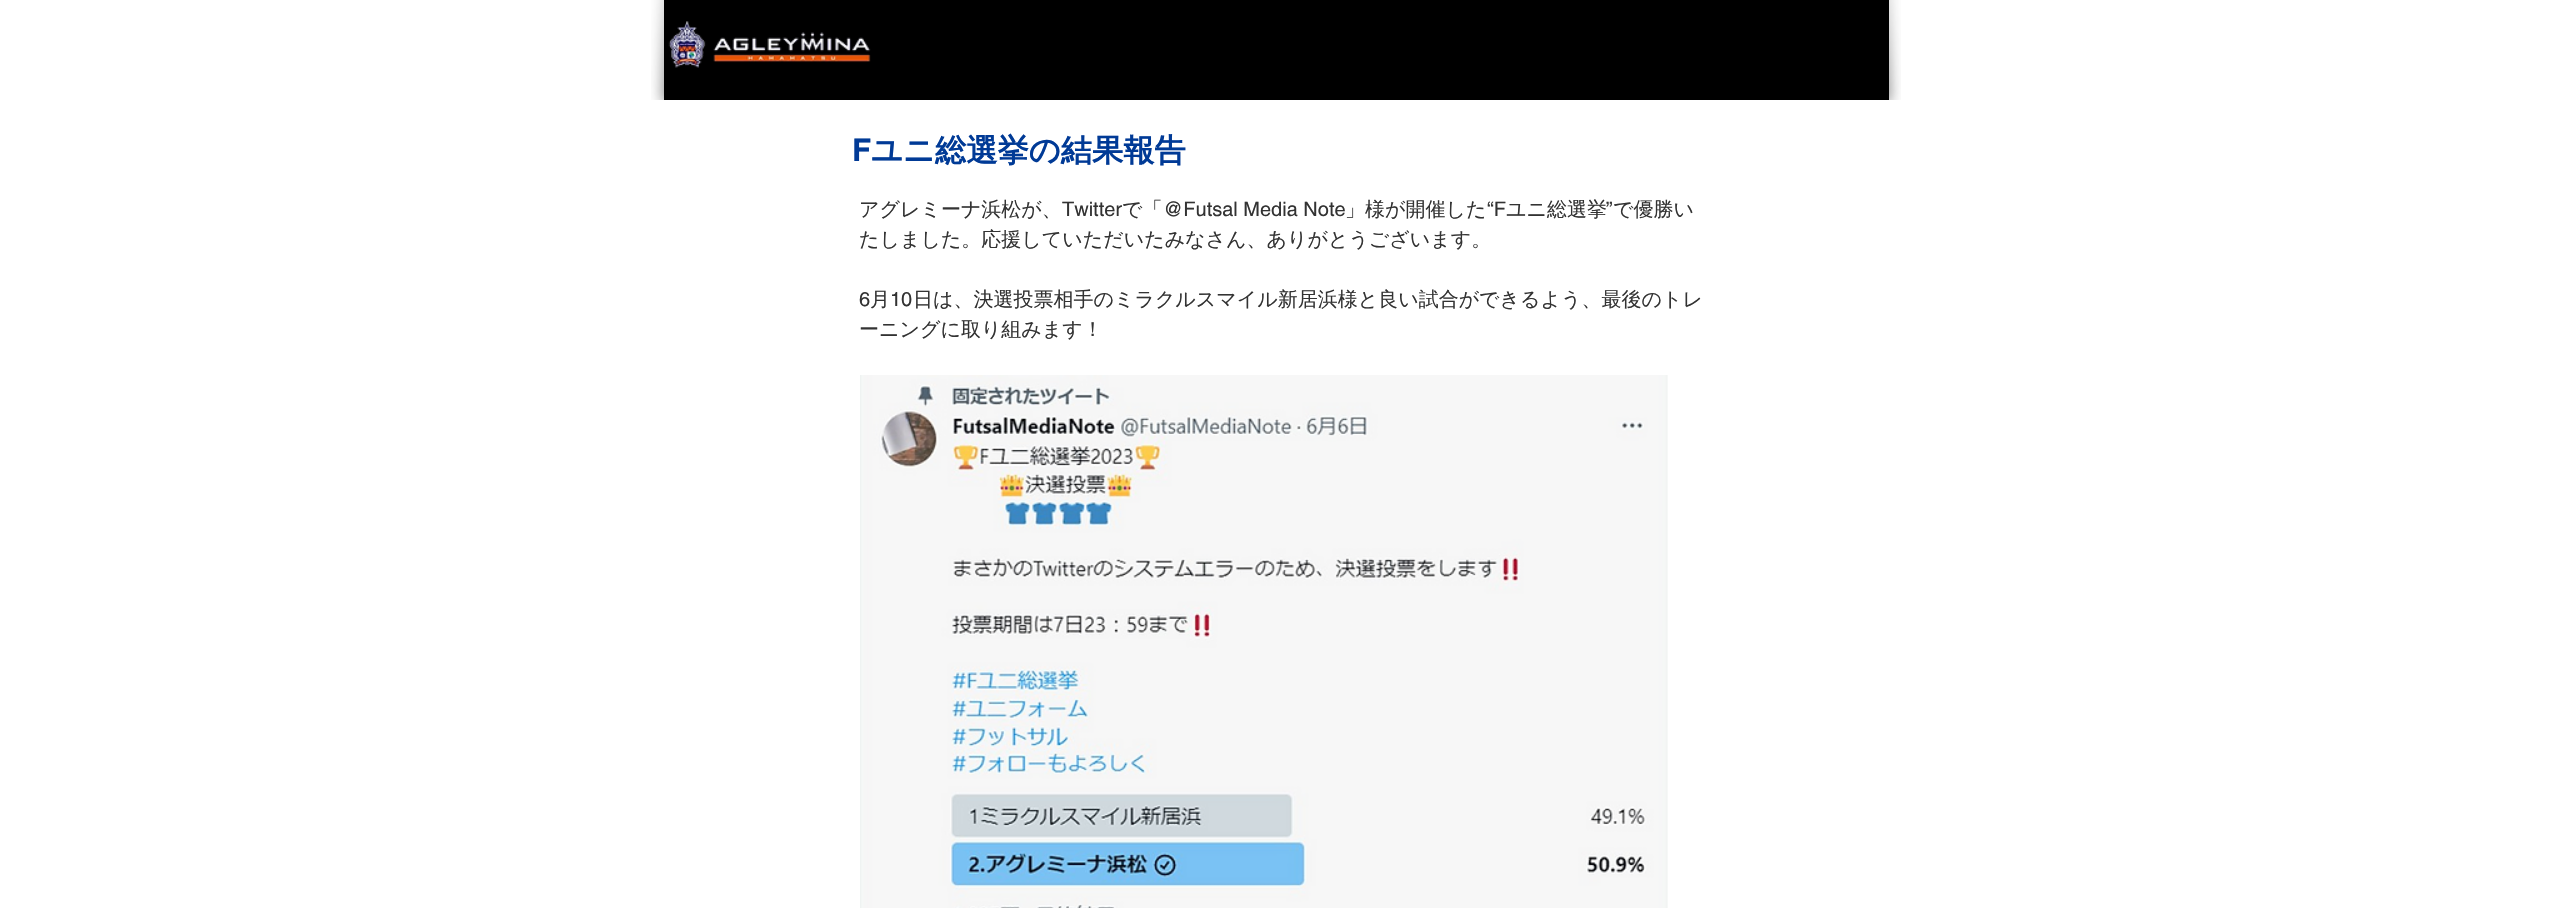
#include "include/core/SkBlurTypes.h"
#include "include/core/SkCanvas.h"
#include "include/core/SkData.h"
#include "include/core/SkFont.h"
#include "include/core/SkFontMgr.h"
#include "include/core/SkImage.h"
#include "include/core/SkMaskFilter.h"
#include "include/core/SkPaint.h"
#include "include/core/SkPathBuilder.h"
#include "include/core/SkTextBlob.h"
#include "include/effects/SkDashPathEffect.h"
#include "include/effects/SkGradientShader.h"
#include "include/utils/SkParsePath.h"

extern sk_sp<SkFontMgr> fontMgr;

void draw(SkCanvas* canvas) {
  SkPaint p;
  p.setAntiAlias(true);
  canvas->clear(SK_ColorWHITE);
  canvas->drawImageRect(SkImages::DeferredFromEncodedData(SkData::MakeFromFileName("images/1.png")), SkRect::MakeLTRB(651, 0, 664, 100), SkSamplingOptions());
  p.setColor(SK_ColorBLACK);
  canvas->drawRect(SkRect::MakeLTRB(664, 0, 1889, 100), p);
  canvas->drawImageRect(SkImages::DeferredFromEncodedData(SkData::MakeFromFileName("images/2.png")), SkRect::MakeLTRB(1889, 0, 1901, 100), SkSamplingOptions());
  canvas->drawImageRect(SkImages::DeferredFromEncodedData(SkData::MakeFromFileName("images/3.png")), SkRect::MakeLTRB(668, 21, 871, 68), SkSamplingOptions());
  canvas->drawImageRect(SkImages::DeferredFromEncodedData(SkData::MakeFromFileName("images/4.png")), SkRect::MakeLTRB(860, 375, 1668, 908), SkSamplingOptions());
  SkFont font1(fontMgr->matchFamilyStyle("helvetica", SkFontStyle::Bold()), 31.25f);
  font1.setSubpixel(true);
  p.setColor(SkColorSetRGB(0, 58, 150));
  canvas->drawString("F", 852, 161, font1, p);
  SkFont font2(fontMgr->matchFamilyStyle("WenQuanYi Zen Hei", SkFontStyle::Bold()), 31.25f);
  font2.setSubpixel(true);
  canvas->drawString("ユニ総選挙の結果報告", 871, 161, font2, p);
  SkFont font3(fontMgr->matchFamilyStyle("WenQuanYi Zen Hei", SkFontStyle(500, SkFontStyle::kNormal_Width, SkFontStyle::kUpright_Slant)), 20);
  font3.setSubpixel(true);
  p.setColor(SkColorSetRGB(51, 51, 51));
  canvas->drawString("アグレミーナ浜松が、", 859, 216, font3, p);
  SkFont font4(fontMgr->matchFamilyStyle("helvetica", SkFontStyle::Normal()), 20);
  font4.setSubpixel(true);
  canvas->drawString("Twitter", 1062, 216, font4, p);
  canvas->drawString("で「", 1122, 216, font3, p);
  canvas->drawString("@Futsal Media Note", 1163, 216, font4, p);
  canvas->drawString("」様が開催した", 1345, 216, font3, p);
  canvas->drawString("“F", 1487, 216, font4, p);
  canvas->drawString("ユニ総選挙", 1506, 216, font3, p);
  canvas->drawString("”", 1606, 216, font4, p);
  canvas->drawString("で優勝い", 1613, 216, font3, p);
  canvas->drawString("たしました。応援していただいたみなさん、ありがとうございます。", 859, 246, font3, p);
  canvas->drawString("6", 859, 306, font4, p);
  canvas->drawString("月", 870, 306, font3, p);
  canvas->drawString("10", 890, 306, font4, p);
  canvas->drawString("日は、決選投票相手のミラクルスマイル新居浜様と良い試合ができるよう、最後のトレ", 913, 306, font3, p);
  canvas->drawString("ーニングに取り組みます！", 859, 336, font3, p);
}
